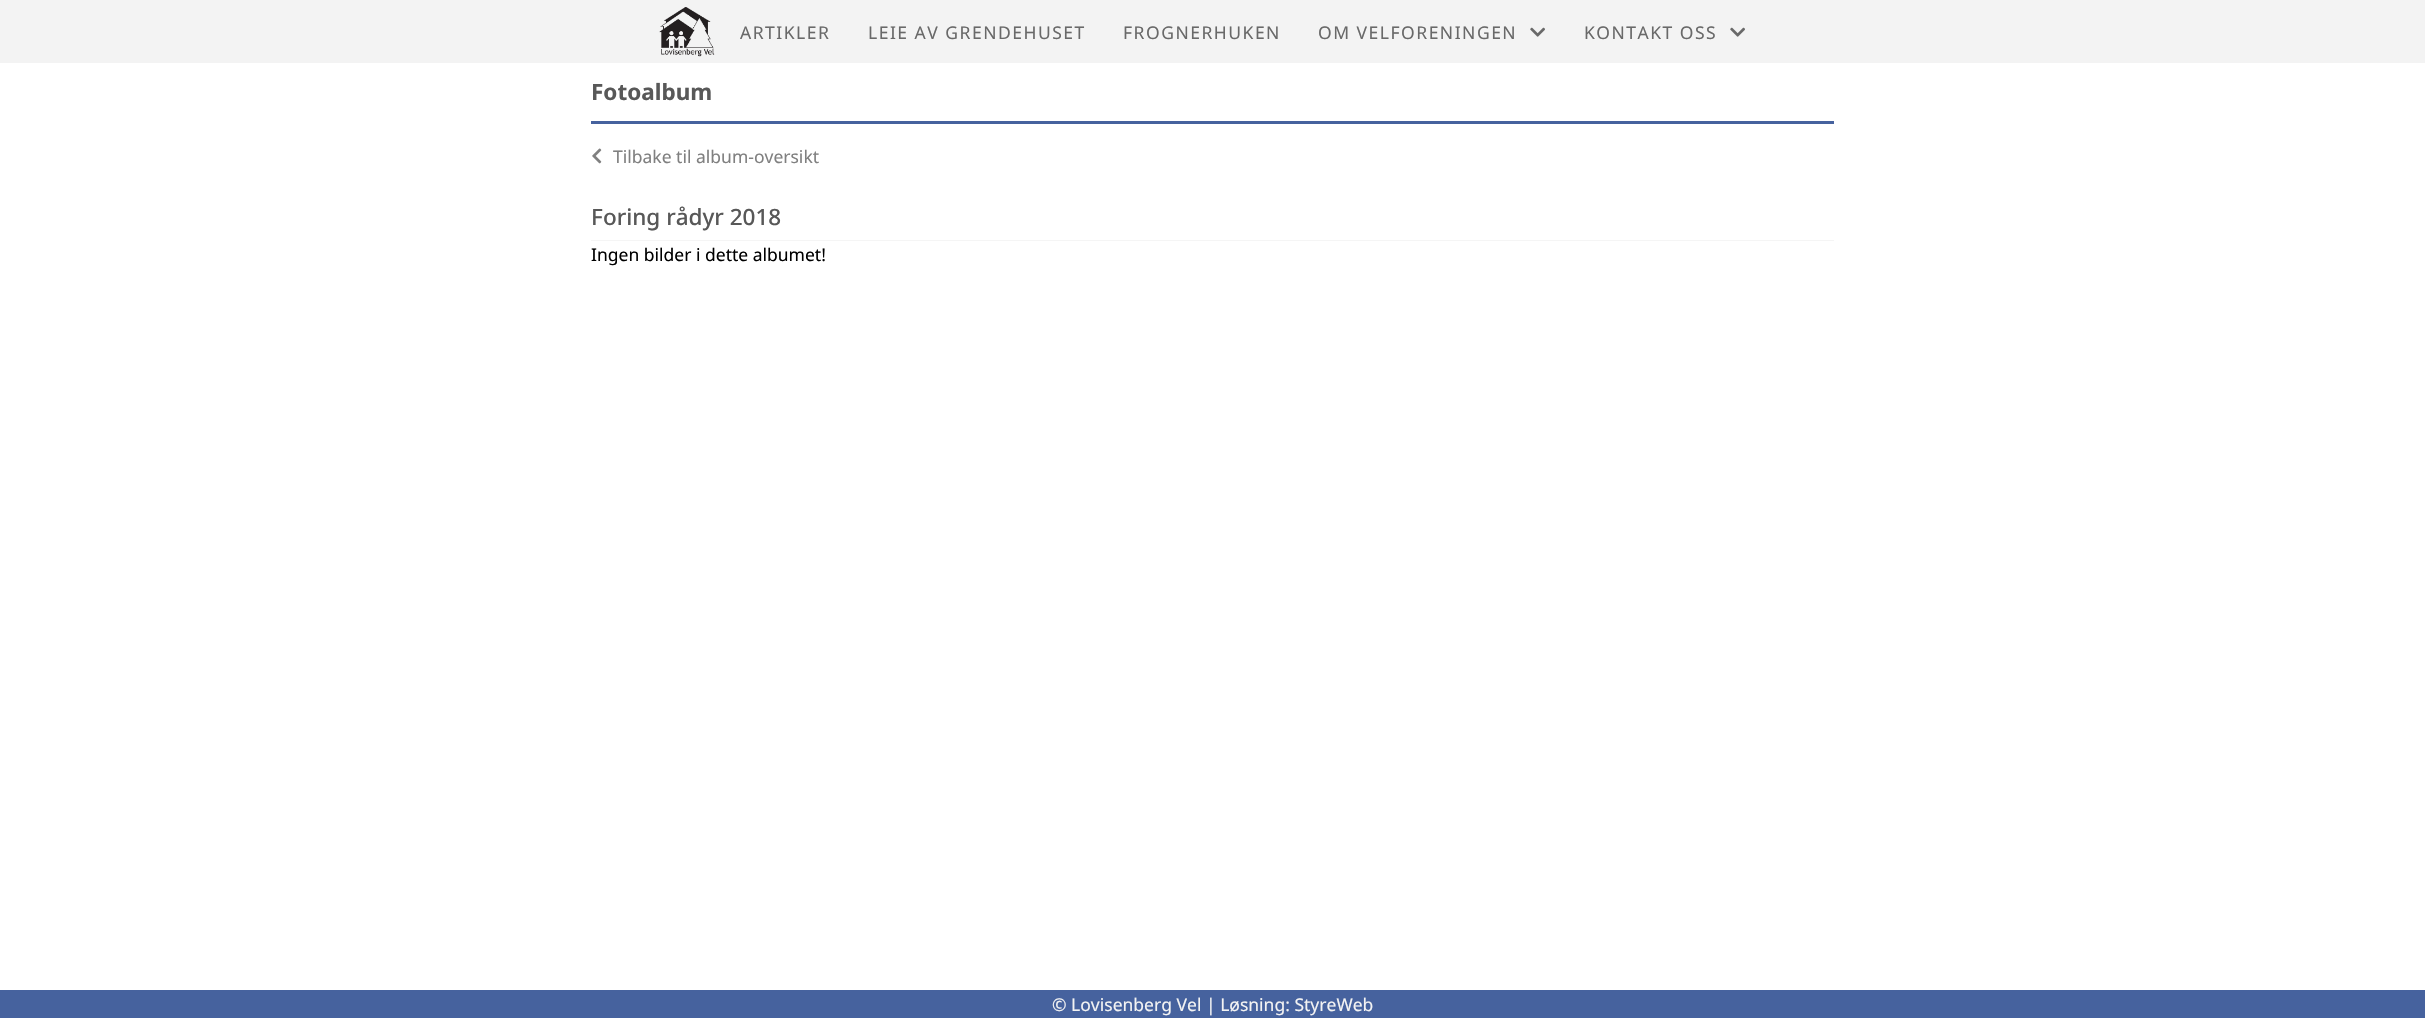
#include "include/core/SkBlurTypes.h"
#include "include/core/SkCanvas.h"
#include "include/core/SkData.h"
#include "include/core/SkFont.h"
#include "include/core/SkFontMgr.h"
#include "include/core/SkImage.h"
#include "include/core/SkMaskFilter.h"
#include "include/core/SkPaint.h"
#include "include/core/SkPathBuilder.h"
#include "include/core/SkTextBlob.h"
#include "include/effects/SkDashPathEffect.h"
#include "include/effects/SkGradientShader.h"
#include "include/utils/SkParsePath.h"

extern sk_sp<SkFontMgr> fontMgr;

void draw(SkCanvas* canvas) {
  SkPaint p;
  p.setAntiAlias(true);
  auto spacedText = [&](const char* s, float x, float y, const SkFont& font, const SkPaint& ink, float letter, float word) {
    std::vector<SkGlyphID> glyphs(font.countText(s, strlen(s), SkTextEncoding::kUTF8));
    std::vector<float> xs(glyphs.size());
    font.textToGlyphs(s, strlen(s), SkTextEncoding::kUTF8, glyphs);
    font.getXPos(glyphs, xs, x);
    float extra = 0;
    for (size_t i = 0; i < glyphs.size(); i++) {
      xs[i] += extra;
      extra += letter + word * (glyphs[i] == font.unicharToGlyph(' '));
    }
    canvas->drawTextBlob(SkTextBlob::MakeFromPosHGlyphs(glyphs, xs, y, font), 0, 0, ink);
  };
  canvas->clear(SK_ColorWHITE);
  p.setColor(SkColorSetRGB(243, 243, 243));
  canvas->drawRect(SkRect::MakeLTRB(0, 0, 2425, 63), p);
  canvas->drawImageRect(SkImages::DeferredFromEncodedData(SkData::MakeFromFileName("images/1.png")), SkRect::MakeLTRB(659, 7, 715, 57), SkSamplingOptions());
  canvas->drawImageRect(SkImages::DeferredFromEncodedData(SkData::MakeFromFileName("images/2.png")), SkRect::MakeLTRB(1530, 27, 1545, 37), SkSamplingOptions());
  canvas->drawImageRect(SkImages::DeferredFromEncodedData(SkData::MakeFromFileName("images/2.png")), SkRect::MakeLTRB(1730, 27, 1745, 37), SkSamplingOptions());
  p.setColor(SkColorSetRGB(70, 98, 158));
  canvas->drawRect(SkRect::MakeLTRB(591, 121, 1834, 124), p);
  canvas->drawImageRect(SkImages::DeferredFromEncodedData(SkData::MakeFromFileName("images/3.png")), SkRect::MakeLTRB(592, 148, 602, 164), SkSamplingOptions());
  p.setColor(SkColorSetRGB(245, 245, 245));
  canvas->drawRect(SkRect::MakeLTRB(591, 240, 1834, 241), p);
  p.setColor(SkColorSetRGB(70, 98, 158));
  canvas->drawRect(SkRect::MakeLTRB(0, 990, 2425, 1018), p);
  SkFont font1(fontMgr->matchFamilyStyle("Noto Sans", SkFontStyle::Normal()), 17.5f);
  font1.setSubpixel(true);
  p.setColor(SkColorSetRGB(105, 105, 105));
  spacedText("ARTIKLER", 740, 39, font1, p, 1.5f, 0);
  spacedText("LEIE AV GRENDEHUSET", 868, 39, font1, p, 1.5f, 0);
  spacedText("FROGNERHUKEN", 1123, 39, font1, p, 1.5f, 0);
  spacedText("OM VELFORENINGEN", 1318, 39, font1, p, 1.5f, 0);
  spacedText("KONTAKT OSS", 1584, 39, font1, p, 1.5f, 0);
  SkFont font2(fontMgr->matchFamilyStyle("Noto Sans", SkFontStyle::Bold()), 22.5f);
  font2.setSubpixel(true);
  p.setColor(SkColorSetRGB(88, 88, 88));
  canvas->drawString("Fotoalbum", 591, 100, font2, p);
  p.setColor(SkColorSetRGB(128, 128, 128));
  canvas->drawString("Tilbake til album-oversikt", 613, 163, font1, p);
  SkFont font3(fontMgr->matchFamilyStyle("Noto Sans", SkFontStyle(500, SkFontStyle::kNormal_Width, SkFontStyle::kUpright_Slant)), 22.5f);
  font3.setSubpixel(true);
  p.setColor(SkColorSetRGB(88, 88, 88));
  canvas->drawString("Foring rådyr 2018", 591, 225, font3, p);
  p.setColor(SK_ColorBLACK);
  canvas->drawString("Ingen bilder i dette albumet!", 591, 261, font1, p);
  p.setColor(SkColorSetRGB(243, 243, 243));
  canvas->drawString("© Lovisenberg Vel | Løsning: StyreWeb", 1052, 1011, font1, p);
}
